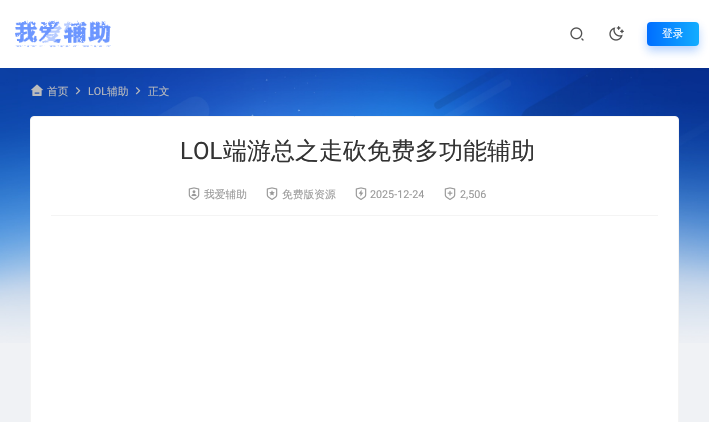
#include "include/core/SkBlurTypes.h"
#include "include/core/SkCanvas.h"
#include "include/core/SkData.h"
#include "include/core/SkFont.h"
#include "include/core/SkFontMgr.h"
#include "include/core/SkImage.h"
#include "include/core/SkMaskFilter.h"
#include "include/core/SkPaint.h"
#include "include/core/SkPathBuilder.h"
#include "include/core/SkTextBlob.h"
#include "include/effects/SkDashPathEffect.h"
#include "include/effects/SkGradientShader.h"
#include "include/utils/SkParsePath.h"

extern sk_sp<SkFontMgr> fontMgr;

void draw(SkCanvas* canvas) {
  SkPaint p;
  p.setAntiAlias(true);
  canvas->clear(SkColorSetRGB(240, 242, 245));
  canvas->drawImageRect(SkImages::DeferredFromEncodedData(SkData::MakeFromFileName("images/4.png")), SkRect::MakeLTRB(0, 68, 709, 343), SkSamplingOptions());
  canvas->drawImageRect(SkImages::DeferredFromEncodedData(SkData::MakeFromFileName("images/5.png")), SkRect::MakeLTRB(30, 84, 44, 96), SkSamplingOptions());
  canvas->drawImageRect(SkImages::DeferredFromEncodedData(SkData::MakeFromFileName("images/6.png")), SkRect::MakeLTRB(75, 87, 81, 95), SkSamplingOptions());
  canvas->drawImageRect(SkImages::DeferredFromEncodedData(SkData::MakeFromFileName("images/7.png")), SkRect::MakeLTRB(135, 87, 141, 95), SkSamplingOptions());
  p.setColor(SkColorSetARGB(18, 0, 0, 0));
  p.setMaskFilter(SkMaskFilter::MakeBlur(kNormal_SkBlurStyle, 15));
  canvas->drawRect(SkRect::MakeLTRB(0, 0, 709, 68), p);
  p.setMaskFilter(nullptr);
  p.setColor(SK_ColorWHITE);
  canvas->drawRect(SkRect::MakeLTRB(0, 0, 709, 68), p);
  canvas->drawImageRect(SkImages::DeferredFromEncodedData(SkData::MakeFromFileName("images/1.png")), SkRect::MakeLTRB(15, 20, 111, 48), SkSamplingOptions());
  p.setColor(SkColorSetARGB(128, 255, 255, 255));
  canvas->drawPath(SkPathBuilder().moveTo(24, 58).lineTo(107, -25).lineTo(114, -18).lineTo(31, 65).close().detach(), p);
  canvas->drawImageRect(SkImages::DeferredFromEncodedData(SkData::MakeFromFileName("images/2.png")), SkRect::MakeLTRB(570, 27, 584, 41), SkSamplingOptions());
  canvas->drawImageRect(SkImages::DeferredFromEncodedData(SkData::MakeFromFileName("images/3.png")), SkRect::MakeLTRB(609, 26, 624, 41), SkSamplingOptions());
  p.setColor(SkColorSetARGB(77, 16, 110, 253));
  p.setMaskFilter(SkMaskFilter::MakeBlur(kNormal_SkBlurStyle, 5));
  canvas->drawRoundRect(SkRect::MakeLTRB(647, 27, 699, 51), 4, 4, p);
  p.setMaskFilter(nullptr);
  {
    const SkColor colors[] = {SkColorSetRGB(0, 110, 255), SkColorSetRGB(19, 173, 255)};
    const float stops[] = {0, 1};
    const SkPoint ends[] = {{647, 34}, {699, 34}};
    p.setShader(SkGradientShader::MakeLinear(ends, colors, stops, 2, SkTileMode::kClamp));
    p.setAlpha(255);
  }
  canvas->drawRoundRect(SkRect::MakeLTRB(647, 22, 699, 46), 4, 4, p);
  p.setShader(nullptr);
  p.setColor(SK_ColorWHITE);
  canvas->drawRoundRect(SkRect::MakeLTRB(30.5f, 116.5f, 678.5f, 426.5f), 3.5f, 3.5f, p);
  p.setStyle(SkPaint::kStroke_Style);
  p.setStrokeWidth(1);
  p.setColor(SkColorSetRGB(244, 244, 244));
  canvas->drawRoundRect(SkRect::MakeLTRB(30.5f, 116.5f, 678.5f, 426.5f), 3.5f, 3.5f, p);
  p.setStyle(SkPaint::kFill_Style);
  canvas->drawRect(SkRect::MakeLTRB(51, 215, 658, 216), p);
  canvas->drawImageRect(SkImages::DeferredFromEncodedData(SkData::MakeFromFileName("images/8.png")), SkRect::MakeLTRB(188, 187, 200, 200), SkSamplingOptions());
  canvas->drawImageRect(SkImages::DeferredFromEncodedData(SkData::MakeFromFileName("images/9.png")), SkRect::MakeLTRB(266, 187, 278, 200), SkSamplingOptions());
  canvas->drawImageRect(SkImages::DeferredFromEncodedData(SkData::MakeFromFileName("images/10.png")), SkRect::MakeLTRB(355, 187, 367, 200), SkSamplingOptions());
  canvas->drawImageRect(SkImages::DeferredFromEncodedData(SkData::MakeFromFileName("images/11.png")), SkRect::MakeLTRB(444, 187, 456, 200), SkSamplingOptions());
  SkFont font1(fontMgr->matchFamilyStyle("WenQuanYi Zen Hei", SkFontStyle(500, SkFontStyle::kNormal_Width, SkFontStyle::kUpright_Slant)), 10.75f);
  font1.setSubpixel(true);
  p.setColor(SK_ColorWHITE);
  canvas->drawString("登录", 662, 37, font1, p);
  p.setColor(SkColorSetRGB(189, 189, 189));
  canvas->drawString("首页", 47, 95, font1, p);
  SkFont font2(fontMgr->matchFamilyStyle("Roboto", SkFontStyle::Normal()), 10.75f);
  font2.setSubpixel(true);
  canvas->drawString("LOL", 88, 95, font2, p);
  canvas->drawString("辅助", 107, 95, font1, p);
  canvas->drawString("正文", 148, 95, font1, p);
  SkFont font3(fontMgr->matchFamilyStyle("Roboto", SkFontStyle::Normal()), 24);
  font3.setSubpixel(true);
  p.setColor(SkColorSetRGB(51, 51, 51));
  canvas->drawString("LOL", 180, 159, font3, p);
  SkFont font4(fontMgr->matchFamilyStyle("WenQuanYi Zen Hei", SkFontStyle(500, SkFontStyle::kNormal_Width, SkFontStyle::kUpright_Slant)), 24);
  font4.setSubpixel(true);
  canvas->drawString("端游总之走砍免费多功能辅助", 223, 159, font4, p);
  p.setColor(SkColorSetRGB(153, 153, 153));
  canvas->drawString("我爱辅助", 204, 198, font1, p);
  canvas->drawString("免费版资源", 282, 198, font1, p);
  canvas->drawString("2025-12-24", 370, 198, font2, p);
  canvas->drawString("2,506", 460, 198, font2, p);
}
